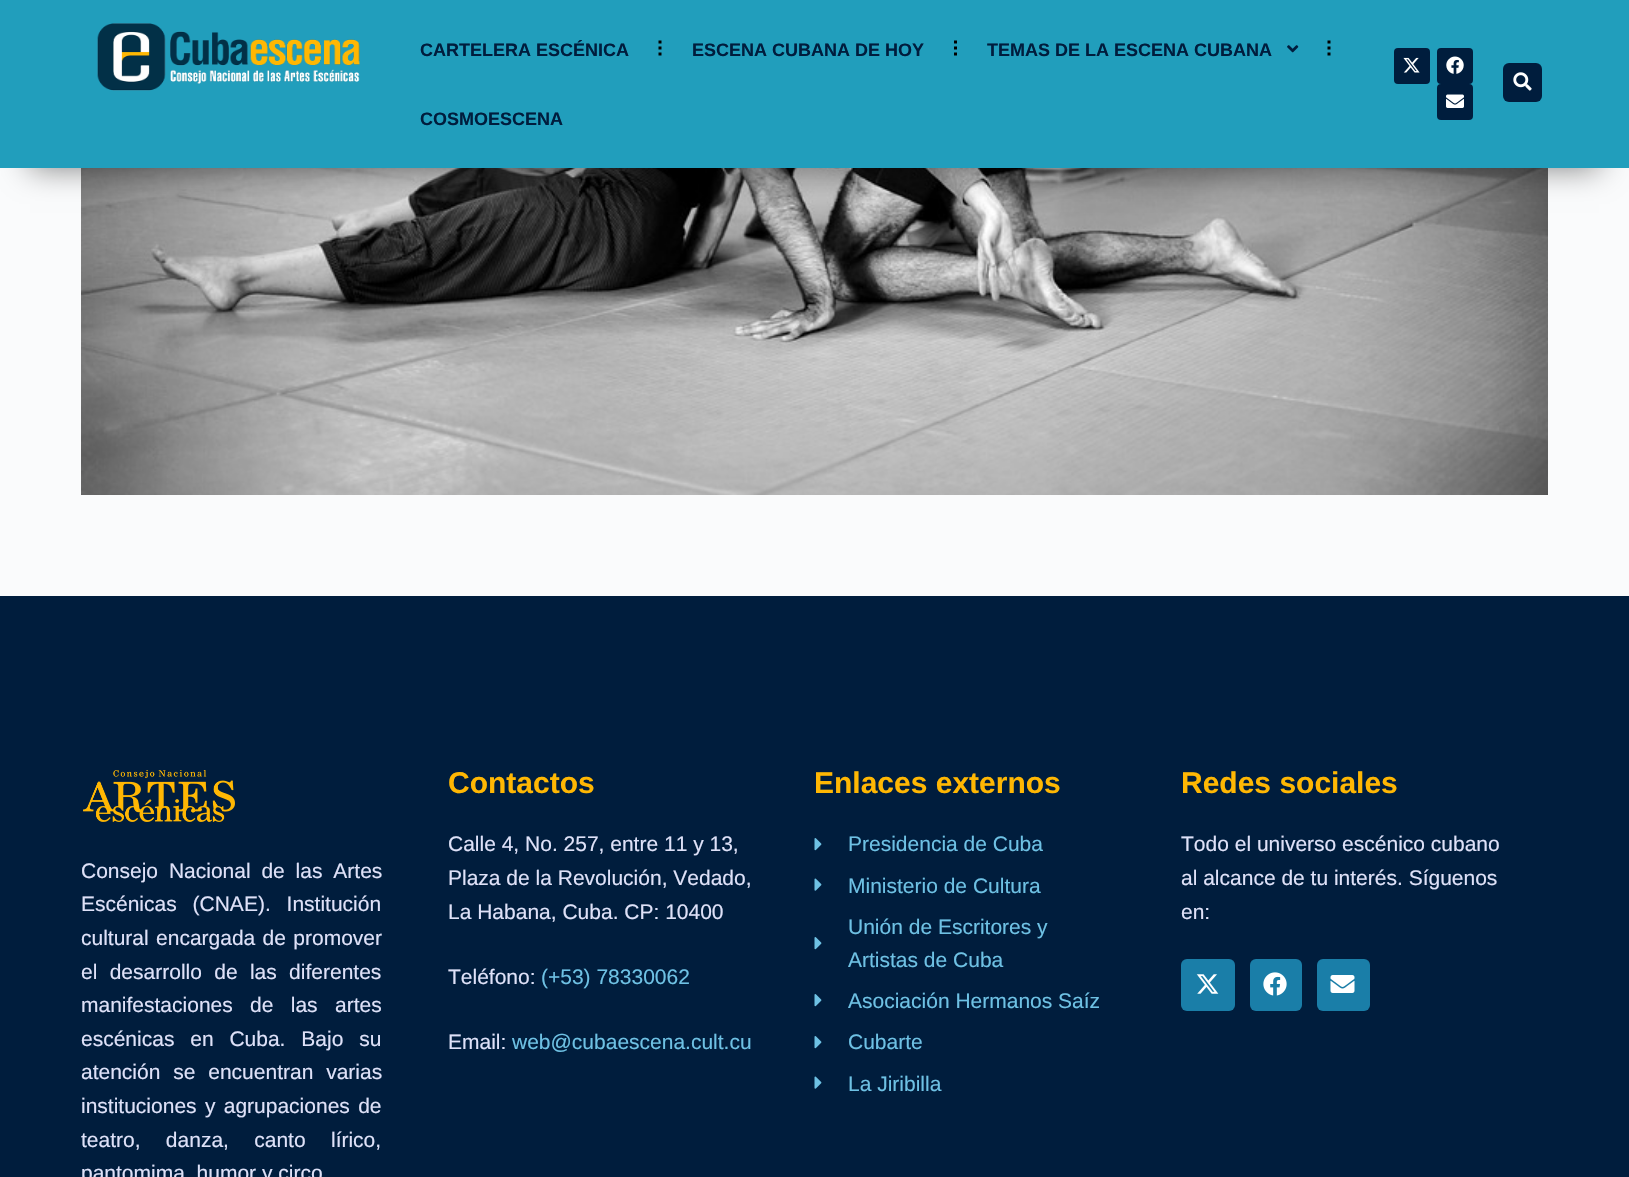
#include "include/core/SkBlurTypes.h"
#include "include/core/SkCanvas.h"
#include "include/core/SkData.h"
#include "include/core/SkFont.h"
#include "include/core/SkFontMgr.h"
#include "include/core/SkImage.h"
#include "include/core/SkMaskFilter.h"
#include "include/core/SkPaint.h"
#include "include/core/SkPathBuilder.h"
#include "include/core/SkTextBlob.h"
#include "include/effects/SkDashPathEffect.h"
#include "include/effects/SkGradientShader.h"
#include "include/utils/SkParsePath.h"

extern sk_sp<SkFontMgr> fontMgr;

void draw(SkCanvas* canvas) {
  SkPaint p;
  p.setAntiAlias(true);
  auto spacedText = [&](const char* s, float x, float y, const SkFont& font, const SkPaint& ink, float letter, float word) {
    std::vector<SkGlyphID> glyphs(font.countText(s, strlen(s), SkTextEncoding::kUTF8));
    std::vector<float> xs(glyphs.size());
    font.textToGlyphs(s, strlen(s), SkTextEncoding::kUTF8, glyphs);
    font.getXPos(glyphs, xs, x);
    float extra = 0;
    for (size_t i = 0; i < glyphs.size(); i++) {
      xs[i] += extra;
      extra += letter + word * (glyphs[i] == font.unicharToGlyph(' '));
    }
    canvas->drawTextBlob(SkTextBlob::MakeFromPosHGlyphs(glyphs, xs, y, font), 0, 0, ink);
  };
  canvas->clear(SkColorSetRGB(250, 251, 252));
  canvas->drawImageRect(SkImages::DeferredFromEncodedData(SkData::MakeFromFileName("images/7.png")), SkRect::MakeLTRB(81, 168, 1548, 495), SkSamplingOptions());
  p.setColor(SkColorSetARGB(128, 0, 0, 0));
  p.setMaskFilter(SkMaskFilter::MakeBlur(kNormal_SkBlurStyle, 15));
  canvas->drawRect(SkRect::MakeLTRB(30, 60, 1599, 168), p);
  p.setMaskFilter(nullptr);
  p.setColor(SkColorSetRGB(33, 158, 188));
  canvas->drawRect(SkRect::MakeLTRB(0, 0, 1629, 168), p);
  canvas->drawImageRect(SkImages::DeferredFromEncodedData(SkData::MakeFromFileName("images/1.png")), SkRect::MakeLTRB(97, 23, 360, 91), SkSamplingOptions());
  p.setStyle(SkPaint::kStroke_Style);
  p.setStrokeWidth(3);
  p.setColor(SK_ColorBLACK);
  canvas->drawPath(SkPathBuilder().moveTo(660, 40.5f).lineTo(660, 43.5f).moveTo(660, 46.5f).lineTo(660, 49.5f).moveTo(660, 52.5f).lineTo(660, 55.5f).detach(), p);
  canvas->drawPath(SkPathBuilder().moveTo(955.5f, 40.5f).lineTo(955.5f, 43.5f).moveTo(955.5f, 46.5f).lineTo(955.5f, 49.5f).moveTo(955.5f, 52.5f).lineTo(955.5f, 55.5f).detach(), p);
  canvas->drawImageRect(SkImages::DeferredFromEncodedData(SkData::MakeFromFileName("images/2.png")), SkRect::MakeLTRB(1287, 45, 1299, 53), SkSamplingOptions());
  canvas->drawPath(SkPathBuilder().moveTo(1329, 40.5f).lineTo(1329, 43.5f).moveTo(1329, 46.5f).lineTo(1329, 49.5f).moveTo(1329, 52.5f).lineTo(1329, 55.5f).detach(), p);
  p.setStyle(SkPaint::kFill_Style);
  p.setColor(SkColorSetRGB(0, 29, 61));
  canvas->drawRoundRect(SkRect::MakeLTRB(1394, 48, 1430, 84), 4, 4, p);
  canvas->drawImageRect(SkImages::DeferredFromEncodedData(SkData::MakeFromFileName("images/3.png")), SkRect::MakeLTRB(1403, 57, 1420, 73), SkSamplingOptions());
  canvas->drawRoundRect(SkRect::MakeLTRB(1437, 48, 1473, 84), 4, 4, p);
  canvas->drawImageRect(SkImages::DeferredFromEncodedData(SkData::MakeFromFileName("images/4.png")), SkRect::MakeLTRB(1446, 56, 1464, 74), SkSamplingOptions());
  canvas->drawRoundRect(SkRect::MakeLTRB(1437, 84, 1473, 120), 4, 4, p);
  canvas->drawImageRect(SkImages::DeferredFromEncodedData(SkData::MakeFromFileName("images/5.png")), SkRect::MakeLTRB(1446, 94, 1464, 108), SkSamplingOptions());
  canvas->drawRoundRect(SkRect::MakeLTRB(1503, 63, 1542, 102), 6, 6, p);
  canvas->drawImageRect(SkImages::DeferredFromEncodedData(SkData::MakeFromFileName("images/6.png")), SkRect::MakeLTRB(1513, 72, 1532, 91), SkSamplingOptions());
  canvas->drawRect(SkRect::MakeLTRB(0, 596, 1629, 1177), p);
  canvas->drawImageRect(SkImages::DeferredFromEncodedData(SkData::MakeFromFileName("images/8.png")), SkRect::MakeLTRB(83, 770, 235, 822), SkSamplingOptions());
  canvas->drawImageRect(SkImages::DeferredFromEncodedData(SkData::MakeFromFileName("images/9.png")), SkRect::MakeLTRB(814, 838, 822, 851), SkSamplingOptions());
  canvas->drawImageRect(SkImages::DeferredFromEncodedData(SkData::MakeFromFileName("images/10.png")), SkRect::MakeLTRB(814, 878, 822, 891), SkSamplingOptions());
  canvas->drawImageRect(SkImages::DeferredFromEncodedData(SkData::MakeFromFileName("images/9.png")), SkRect::MakeLTRB(814, 937, 822, 950), SkSamplingOptions());
  canvas->drawImageRect(SkImages::DeferredFromEncodedData(SkData::MakeFromFileName("images/9.png")), SkRect::MakeLTRB(814, 994, 822, 1007), SkSamplingOptions());
  canvas->drawImageRect(SkImages::DeferredFromEncodedData(SkData::MakeFromFileName("images/9.png")), SkRect::MakeLTRB(814, 1036, 822, 1049), SkSamplingOptions());
  canvas->drawImageRect(SkImages::DeferredFromEncodedData(SkData::MakeFromFileName("images/10.png")), SkRect::MakeLTRB(814, 1076, 822, 1089), SkSamplingOptions());
  p.setColor(SkColorSetRGB(26, 126, 168));
  canvas->drawRoundRect(SkRect::MakeLTRB(1181, 959, 1235, 1011), 6, 6, p);
  canvas->drawImageRect(SkImages::DeferredFromEncodedData(SkData::MakeFromFileName("images/11.png")), SkRect::MakeLTRB(1196, 974, 1219, 994), SkSamplingOptions());
  canvas->drawRoundRect(SkRect::MakeLTRB(1250, 959, 1302, 1011), 6, 6, p);
  canvas->drawImageRect(SkImages::DeferredFromEncodedData(SkData::MakeFromFileName("images/12.png")), SkRect::MakeLTRB(1263, 972, 1287, 996), SkSamplingOptions());
  canvas->drawRoundRect(SkRect::MakeLTRB(1317, 959, 1370, 1011), 6, 6, p);
  canvas->drawImageRect(SkImages::DeferredFromEncodedData(SkData::MakeFromFileName("images/13.png")), SkRect::MakeLTRB(1330, 975, 1355, 993), SkSamplingOptions());
  SkFont font1(fontMgr->matchFamilyStyle("Liberation Sans", SkFontStyle::Bold()), 18);
  font1.setSubpixel(true);
  p.setColor(SkColorSetRGB(0, 29, 61));
  canvas->drawString("CARTELERA ESCÉNICA", 420, 56, font1, p);
  canvas->drawString("ESCENA CUBANA DE HOY", 692, 56, font1, p);
  canvas->drawString("TEMAS DE LA ESCENA CUBANA", 987, 56, font1, p);
  canvas->drawString("COSMOESCENA", 420, 125, font1, p);
  SkFont font2(fontMgr->matchFamilyStyle("Liberation Sans", SkFontStyle::Normal()), 21);
  font2.setSubpixel(true);
  p.setColor(SkColorSetRGB(222, 225, 248));
  spacedText("Consejo Nacional de las Artes", 81, 878, font2, p, 0, 5);
  spacedText("Escénicas (CNAE). Institución", 81, 911, font2, p, 0, 10);
  spacedText("cultural encargada de promover", 81, 945, font2, p, 0, 1.5f);
  spacedText("el desarrollo de las diferentes", 81, 979, font2, p, 0, 6.5f);
  spacedText("manifestaciones de las artes", 81, 1012, font2, p, 0, 11.5f);
  spacedText("escénicas en Cuba. Bajo su", 81, 1046, font2, p, 0, 10);
  spacedText("atención se encuentran varias", 81, 1079, font2, p, 0, 7);
  spacedText("instituciones y agrupaciones de", 81, 1113, font2, p, 0, 2.5f);
  spacedText("teatro, danza, canto lírico,", 81, 1147, font2, p, 0, 19.5f);
  canvas->drawString("pantomima, humor y circo", 81, 1180, font2, p);
  SkFont font3(fontMgr->matchFamilyStyle("Liberation Sans", SkFontStyle::Bold()), 30);
  font3.setSubpixel(true);
  p.setColor(SkColorSetRGB(255, 183, 3));
  canvas->drawString("Contactos", 448, 793, font3, p);
  p.setColor(SkColorSetRGB(222, 225, 248));
  canvas->drawString("Calle 4, No. 257, entre 11 y 13,", 448, 851, font2, p);
  canvas->drawString("Plaza de la Revolución, Vedado,", 448, 885, font2, p);
  canvas->drawString("La Habana, Cuba. CP: 10400", 448, 919, font2, p);
  canvas->drawString("Teléfono:", 448, 984, font2, p);
  p.setColor(SkColorSetRGB(110, 193, 228));
  canvas->drawString("(+53) 78330062", 541, 984, font2, p);
  p.setColor(SkColorSetRGB(222, 225, 248));
  canvas->drawString("Email:", 448, 1049, font2, p);
  p.setColor(SkColorSetRGB(110, 193, 228));
  canvas->drawString("web@cubaescena.cult.cu", 512, 1049, font2, p);
  p.setColor(SkColorSetRGB(255, 183, 3));
  canvas->drawString("Enlaces externos", 814, 793, font3, p);
  p.setColor(SkColorSetRGB(110, 193, 228));
  canvas->drawString("Presidencia de Cuba", 848, 851, font2, p);
  canvas->drawString("Ministerio de Cultura", 848, 893, font2, p);
  canvas->drawString("Unión de Escritores y", 848, 934, font2, p);
  canvas->drawString("Artistas de Cuba", 848, 967, font2, p);
  canvas->drawString("Asociación Hermanos Saíz", 848, 1008, font2, p);
  canvas->drawString("Cubarte", 848, 1049, font2, p);
  canvas->drawString("La Jiribilla", 848, 1091, font2, p);
  p.setColor(SkColorSetRGB(255, 183, 3));
  canvas->drawString("Redes sociales", 1181, 793, font3, p);
  p.setColor(SkColorSetRGB(222, 225, 248));
  canvas->drawString("Todo el universo escénico cubano", 1181, 851, font2, p);
  canvas->drawString("al alcance de tu interés. Síguenos", 1181, 885, font2, p);
  canvas->drawString("en:", 1181, 919, font2, p);
}
